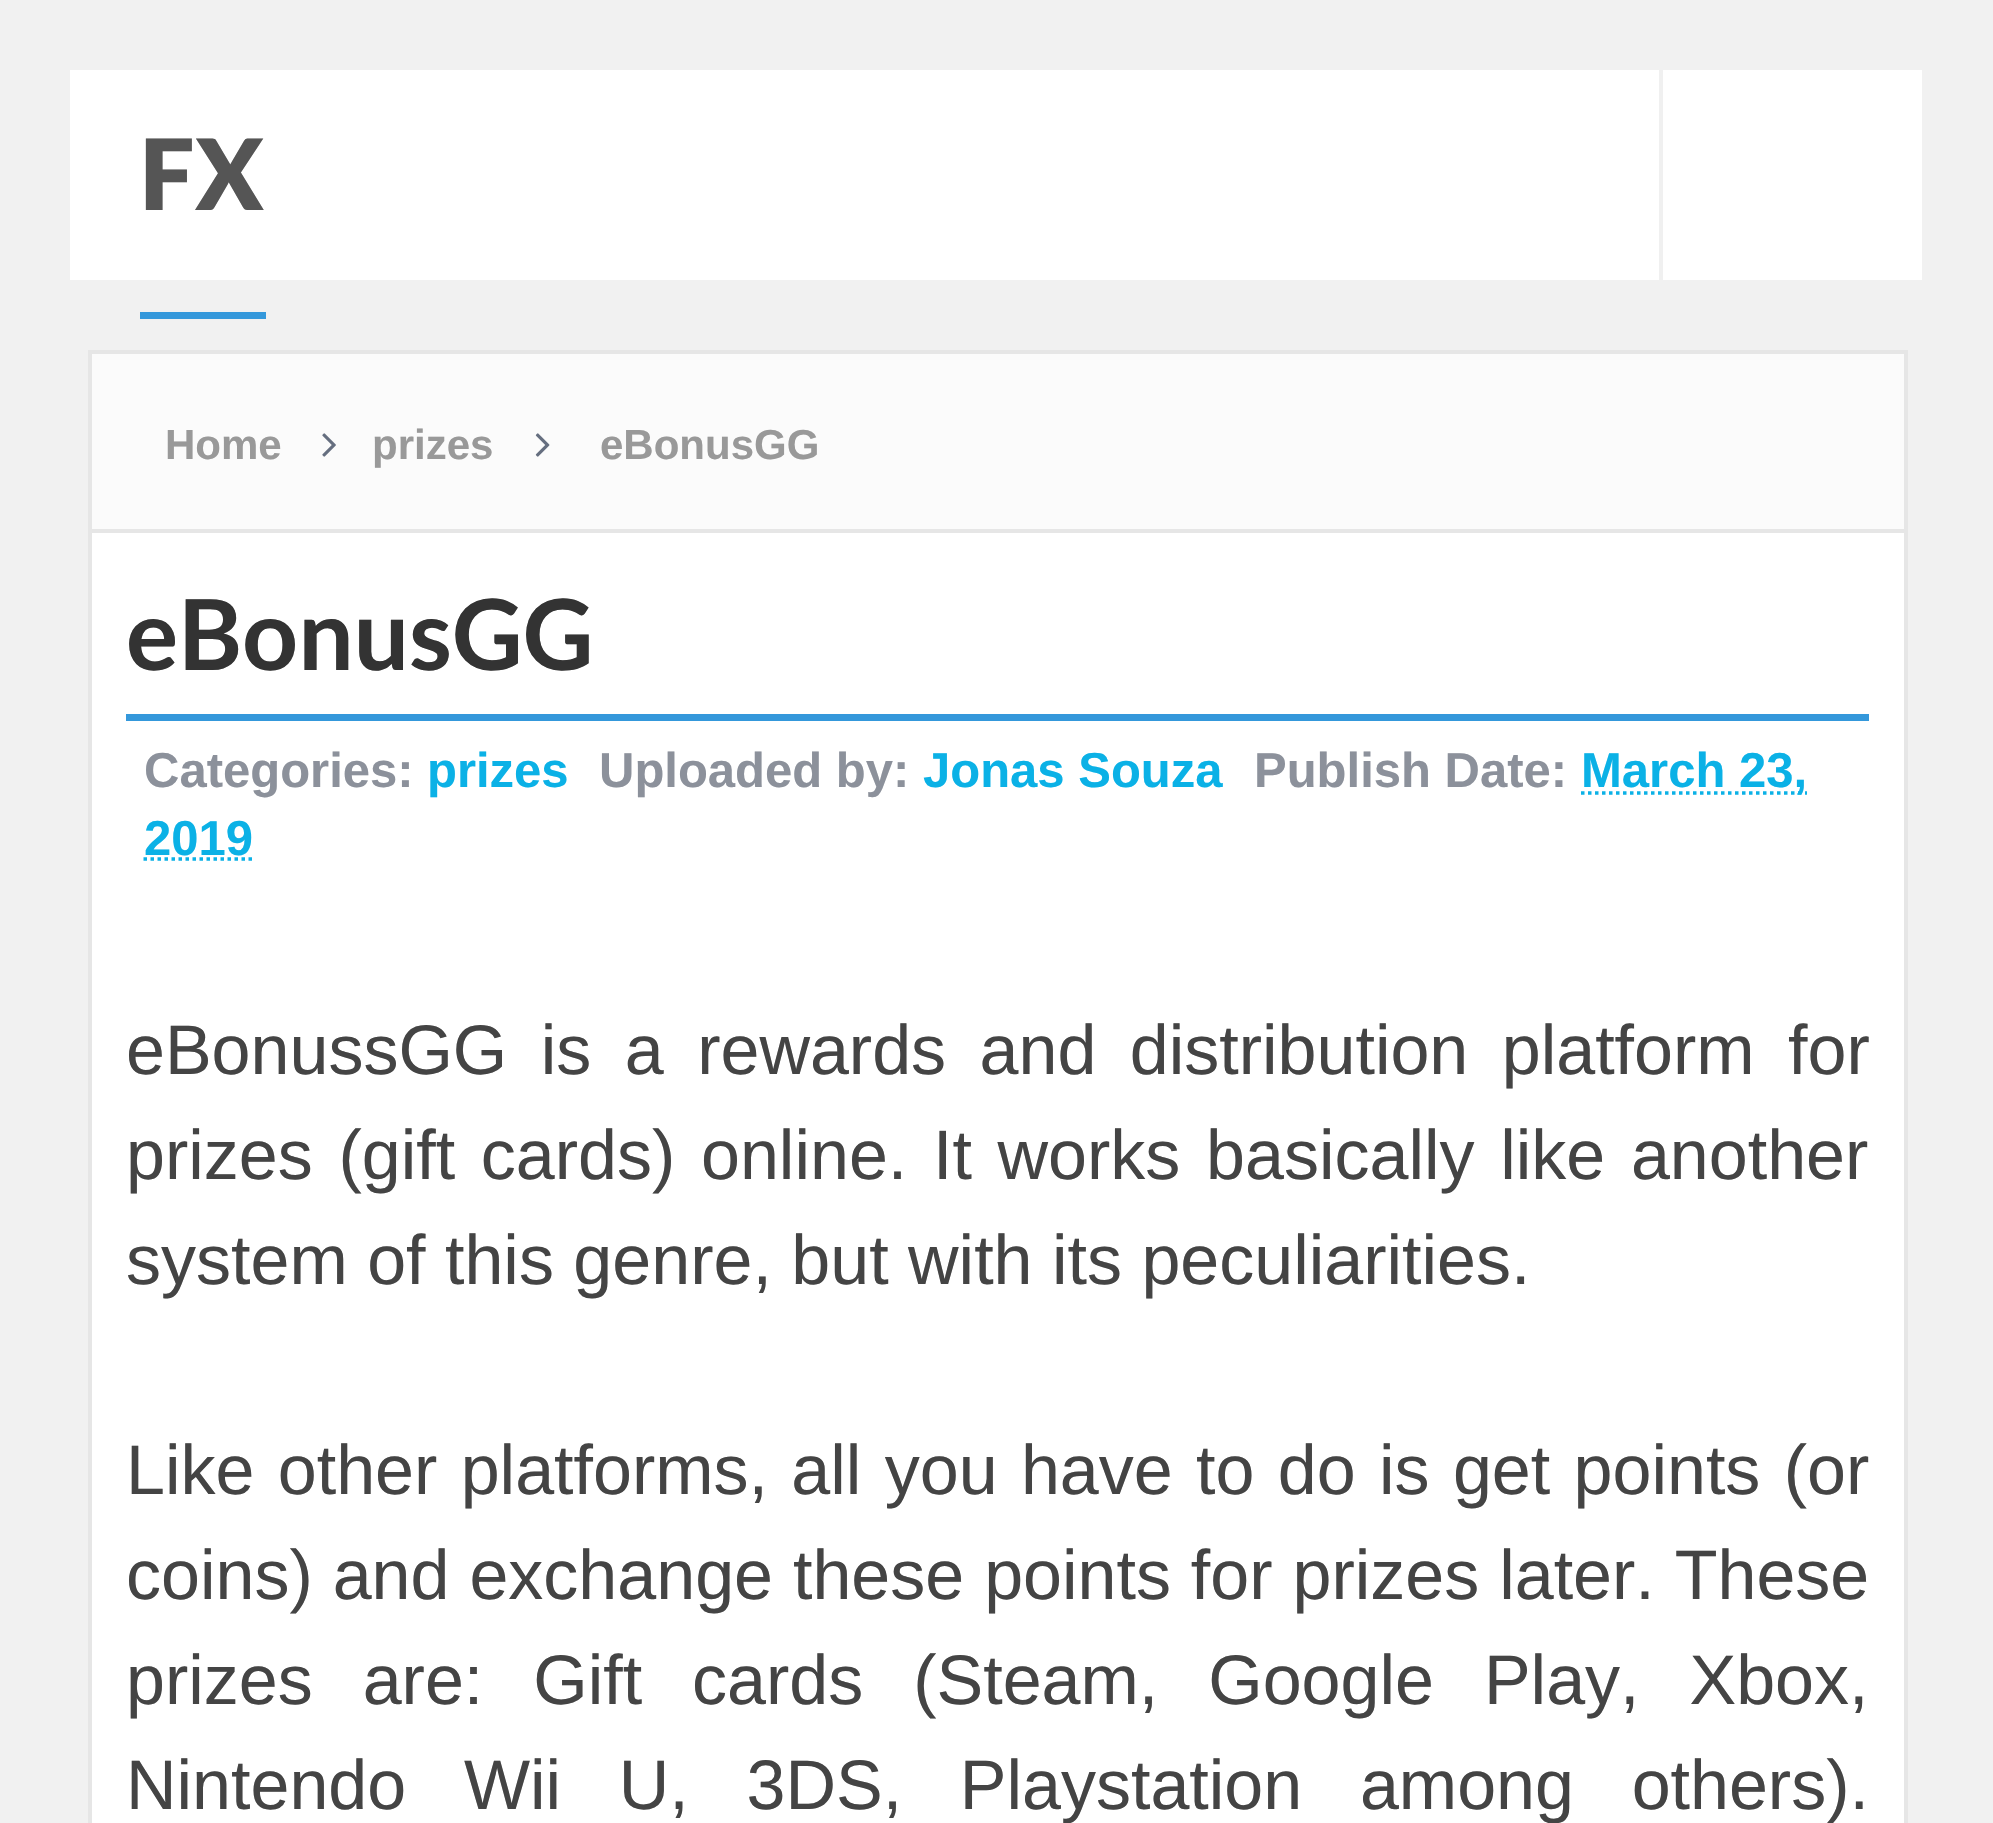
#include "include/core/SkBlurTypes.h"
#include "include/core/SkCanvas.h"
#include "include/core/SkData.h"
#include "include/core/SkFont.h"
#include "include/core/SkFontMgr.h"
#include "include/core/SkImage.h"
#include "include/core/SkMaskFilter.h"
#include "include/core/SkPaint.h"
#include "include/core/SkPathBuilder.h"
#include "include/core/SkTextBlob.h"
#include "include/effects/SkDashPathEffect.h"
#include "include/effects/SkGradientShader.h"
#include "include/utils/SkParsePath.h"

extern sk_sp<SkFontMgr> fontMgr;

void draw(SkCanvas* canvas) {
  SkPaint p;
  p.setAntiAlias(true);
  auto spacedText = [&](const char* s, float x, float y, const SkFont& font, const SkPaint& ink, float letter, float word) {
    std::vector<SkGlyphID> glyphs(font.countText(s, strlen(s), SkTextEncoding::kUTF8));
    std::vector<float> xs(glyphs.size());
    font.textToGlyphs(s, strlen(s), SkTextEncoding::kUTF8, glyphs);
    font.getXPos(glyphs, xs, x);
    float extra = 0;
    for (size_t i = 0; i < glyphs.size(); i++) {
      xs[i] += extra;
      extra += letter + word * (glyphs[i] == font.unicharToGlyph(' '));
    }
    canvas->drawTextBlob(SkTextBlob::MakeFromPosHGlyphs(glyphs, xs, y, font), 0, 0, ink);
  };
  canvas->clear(SkColorSetRGB(241, 241, 241));
  p.setColor(SK_ColorWHITE);
  canvas->drawRect(SkRect::MakeLTRB(70, 70, 1922, 280), p);
  p.setColor(SkColorSetRGB(52, 152, 219));
  canvas->drawRect(SkRect::MakeLTRB(140, 312, 266, 319), p);
  p.setColor(SkColorSetRGB(240, 240, 240));
  canvas->drawRect(SkRect::MakeLTRB(1659, 70, 1663, 280), p);
  p.setColor(SkColorSetRGB(251, 251, 251));
  canvas->drawRect(SkRect::MakeLTRB(92, 354, 1904, 529), p);
  p.setColor(SkColorSetRGB(230, 230, 230));
  canvas->drawRect(SkRect::MakeLTRB(88, 350, 1908, 354), p);
  canvas->drawRect(SkRect::MakeLTRB(1904, 350, 1908, 529), p);
  canvas->drawRect(SkRect::MakeLTRB(88, 350, 92, 529), p);
  canvas->drawImageRect(SkImages::DeferredFromEncodedData(SkData::MakeFromFileName("images/1.png")), SkRect::MakeLTRB(322, 433, 336, 457), SkSamplingOptions());
  canvas->drawImageRect(SkImages::DeferredFromEncodedData(SkData::MakeFromFileName("images/2.png")), SkRect::MakeLTRB(535, 433, 550, 457), SkSamplingOptions());
  p.setColor(SK_ColorWHITE);
  canvas->drawRect(SkRect::MakeLTRB(90, 531, 1906, 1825), p);
  p.setStyle(SkPaint::kStroke_Style);
  p.setStrokeWidth(4);
  p.setColor(SkColorSetRGB(230, 230, 230));
  canvas->drawRect(SkRect::MakeLTRB(90, 531, 1906, 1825), p);
  p.setStyle(SkPaint::kFill_Style);
  p.setColor(SkColorSetRGB(52, 152, 219));
  canvas->drawRect(SkRect::MakeLTRB(126, 714, 1869, 721), p);
  p.setStyle(SkPaint::kStroke_Style);
  p.setStrokeWidth(3.5f);
  p.setColor(SkColorSetRGB(11, 177, 230));
  p.setPathEffect(SkDashPathEffect::Make({{3.5f, 3.5f}}, 0));
  canvas->drawPath(SkPathBuilder().moveTo(1581, 793).lineTo(1807, 793).detach(), p);
  p.setPathEffect(nullptr);
  p.setPathEffect(SkDashPathEffect::Make({{3.5f, 3.5f}}, 0));
  canvas->drawPath(SkPathBuilder().moveTo(143.5f, 859).lineTo(252.5f, 859).detach(), p);
  p.setPathEffect(nullptr);
  SkFont font1(fontMgr->matchFamilyStyle("Lato", SkFontStyle(900, SkFontStyle::kNormal_Width, SkFontStyle::kUpright_Slant)), 98);
  font1.setSubpixel(true);
  p.setStyle(SkPaint::kFill_Style);
  p.setColor(SkColorSetRGB(85, 85, 85));
  canvas->drawString("FX", 140, 210, font1, p);
  SkFont font2(fontMgr->matchFamilyStyle("Liberation Sans", SkFontStyle::Bold()), 42);
  font2.setSubpixel(true);
  p.setColor(SkColorSetRGB(153, 153, 153));
  canvas->drawString("Home", 165, 459, font2, p);
  canvas->drawString("prizes", 372, 459, font2, p);
  canvas->drawString("eBonusGG", 600, 459, font2, p);
  SkFont font3(fontMgr->matchFamilyStyle("Lato", SkFontStyle::Bold()), 98);
  font3.setSubpixel(true);
  p.setColor(SkColorSetRGB(51, 51, 51));
  canvas->drawString("eBonusGG", 126, 670, font3, p);
  SkFont font4(fontMgr->matchFamilyStyle("Liberation Sans", SkFontStyle::Bold()), 49);
  font4.setSubpixel(true);
  p.setColor(SkColorSetRGB(140, 145, 155));
  canvas->drawString("Categories:", 144, 787, font4, p);
  p.setColor(SkColorSetRGB(11, 177, 230));
  canvas->drawString("prizes", 427, 787, font4, p);
  p.setColor(SkColorSetRGB(140, 145, 155));
  canvas->drawString("Uploaded by:", 599, 787, font4, p);
  p.setColor(SkColorSetRGB(11, 177, 230));
  canvas->drawString("Jonas Souza", 923, 787, font4, p);
  p.setColor(SkColorSetRGB(140, 145, 155));
  canvas->drawString("Publish Date:", 1254, 787, font4, p);
  p.setColor(SkColorSetRGB(11, 177, 230));
  canvas->drawString("March 23,", 1581, 787, font4, p);
  canvas->drawString("2019", 144, 855, font4, p);
  SkFont font5(fontMgr->matchFamilyStyle("Liberation Sans", SkFontStyle::Normal()), 70);
  font5.setSubpixel(true);
  p.setColor(SkColorSetRGB(68, 68, 68));
  spacedText("eBonussGG is a rewards and distribution platform for", 126, 1074, font5, p, 0, 14);
  spacedText("prizes (gift cards) online. It works basically like another", 126, 1179, font5, p, 0, 6.25f);
  canvas->drawString("system of this genre, but with its peculiarities.", 126, 1284, font5, p);
  spacedText("Like other platforms, all you have to do is get points (or", 126, 1494, font5, p, 0, 3.9f);
  spacedText("coins) and exchange these points for prizes later. These", 126, 1599, font5, p, 0, 0.5f);
  spacedText("prizes are: Gift cards (Steam, Google Play, Xbox,", 126, 1704, font5, p, 0, 30.5f);
  spacedText("Nintendo Wii U, 3DS, Playstation among others).", 126, 1809, font5, p, 0, 38.25f);
}
